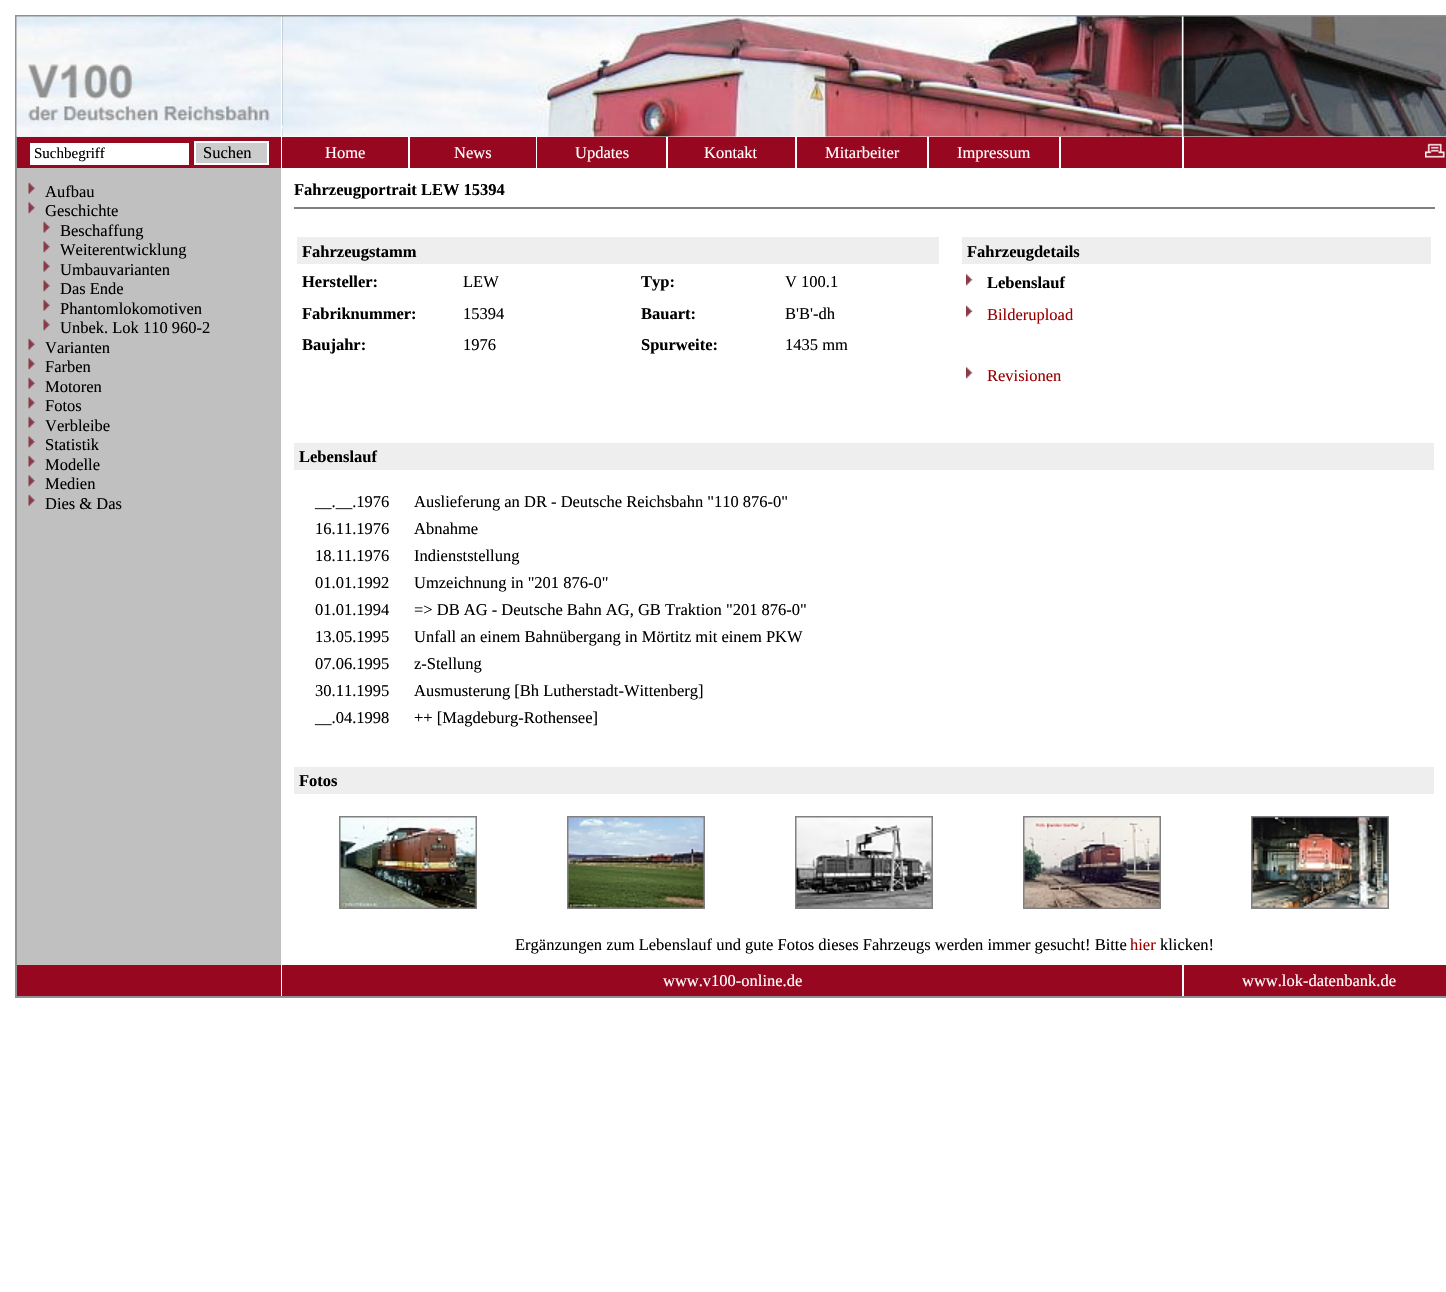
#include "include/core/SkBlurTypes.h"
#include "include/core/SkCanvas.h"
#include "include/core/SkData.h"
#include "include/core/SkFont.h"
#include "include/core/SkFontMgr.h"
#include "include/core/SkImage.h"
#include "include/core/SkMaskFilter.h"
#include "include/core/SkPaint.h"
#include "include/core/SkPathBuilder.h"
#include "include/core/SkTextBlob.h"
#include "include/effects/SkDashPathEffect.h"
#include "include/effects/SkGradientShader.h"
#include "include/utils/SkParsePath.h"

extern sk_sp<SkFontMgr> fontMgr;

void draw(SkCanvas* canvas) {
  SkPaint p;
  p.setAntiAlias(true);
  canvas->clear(SK_ColorWHITE);
  p.setStyle(SkPaint::kStroke_Style);
  p.setStrokeWidth(2);
  p.setColor(SkColorSetRGB(144, 144, 144));
  canvas->drawRect(SkRect::MakeLTRB(16, 16, 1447, 997), p);
  p.setStyle(SkPaint::kFill_Style);
  p.setColor(SkColorSetRGB(226, 239, 247));
  canvas->drawRect(SkRect::MakeLTRB(17, 136, 281, 137), p);
  canvas->drawImageRect(SkImages::DeferredFromEncodedData(SkData::MakeFromFileName("images/1.png")), SkRect::MakeLTRB(16, 16, 282, 137), SkSamplingOptions());
  p.setColor(SK_ColorWHITE);
  canvas->drawRect(SkRect::MakeLTRB(281, 17, 282, 137), p);
  canvas->drawImageRect(SkImages::DeferredFromEncodedData(SkData::MakeFromFileName("images/2.png")), SkRect::MakeLTRB(282, 16, 1184, 137), SkSamplingOptions());
  canvas->drawRect(SkRect::MakeLTRB(1182, 17, 1184, 137), p);
  canvas->drawImageRect(SkImages::DeferredFromEncodedData(SkData::MakeFromFileName("images/3.png")), SkRect::MakeLTRB(1183, 16, 1446, 137), SkSamplingOptions());
  p.setColor(SkColorSetRGB(151, 7, 32));
  canvas->drawRect(SkRect::MakeLTRB(17, 137, 281, 168), p);
  p.setColor(SK_ColorWHITE);
  canvas->drawRect(SkRect::MakeLTRB(30, 143, 189, 165), p);
  p.setColor(SkColorSetRGB(204, 204, 204));
  canvas->drawRect(SkRect::MakeLTRB(195, 142, 268, 164), p);
  p.setStyle(SkPaint::kStroke_Style);
  p.setColor(SK_ColorWHITE);
  canvas->drawRect(SkRect::MakeLTRB(195, 142, 268, 164), p);
  p.setStyle(SkPaint::kFill_Style);
  p.setColor(SkColorSetRGB(151, 7, 32));
  canvas->drawRect(SkRect::MakeLTRB(282, 137, 408, 168), p);
  canvas->drawRect(SkRect::MakeLTRB(410, 137, 536, 168), p);
  canvas->drawRect(SkRect::MakeLTRB(537, 137, 666, 168), p);
  canvas->drawRect(SkRect::MakeLTRB(668, 137, 795, 168), p);
  canvas->drawRect(SkRect::MakeLTRB(797, 137, 927, 168), p);
  canvas->drawRect(SkRect::MakeLTRB(929, 137, 1059, 168), p);
  canvas->drawRect(SkRect::MakeLTRB(1061, 137, 1182, 168), p);
  canvas->drawRect(SkRect::MakeLTRB(1184, 137, 1446, 168), p);
  canvas->drawImageRect(SkImages::DeferredFromEncodedData(SkData::MakeFromFileName("images/4.png")), SkRect::MakeLTRB(1425, 143, 1445, 158), SkSamplingOptions());
  p.setColor(SkColorSetRGB(192, 192, 192));
  canvas->drawRect(SkRect::MakeLTRB(17, 168, 281, 965), p);
  canvas->drawImageRect(SkImages::DeferredFromEncodedData(SkData::MakeFromFileName("images/5.png")), SkRect::MakeLTRB(28, 182, 35, 194), SkSamplingOptions());
  canvas->drawImageRect(SkImages::DeferredFromEncodedData(SkData::MakeFromFileName("images/6.png")), SkRect::MakeLTRB(28, 202, 35, 214), SkSamplingOptions());
  canvas->drawImageRect(SkImages::DeferredFromEncodedData(SkData::MakeFromFileName("images/5.png")), SkRect::MakeLTRB(43, 221, 50, 233), SkSamplingOptions());
  canvas->drawImageRect(SkImages::DeferredFromEncodedData(SkData::MakeFromFileName("images/6.png")), SkRect::MakeLTRB(43, 241, 50, 253), SkSamplingOptions());
  canvas->drawImageRect(SkImages::DeferredFromEncodedData(SkData::MakeFromFileName("images/5.png")), SkRect::MakeLTRB(43, 260, 50, 272), SkSamplingOptions());
  canvas->drawImageRect(SkImages::DeferredFromEncodedData(SkData::MakeFromFileName("images/6.png")), SkRect::MakeLTRB(43, 280, 50, 292), SkSamplingOptions());
  canvas->drawImageRect(SkImages::DeferredFromEncodedData(SkData::MakeFromFileName("images/5.png")), SkRect::MakeLTRB(43, 299, 50, 311), SkSamplingOptions());
  canvas->drawImageRect(SkImages::DeferredFromEncodedData(SkData::MakeFromFileName("images/6.png")), SkRect::MakeLTRB(43, 319, 50, 331), SkSamplingOptions());
  canvas->drawImageRect(SkImages::DeferredFromEncodedData(SkData::MakeFromFileName("images/5.png")), SkRect::MakeLTRB(28, 338, 35, 350), SkSamplingOptions());
  canvas->drawImageRect(SkImages::DeferredFromEncodedData(SkData::MakeFromFileName("images/6.png")), SkRect::MakeLTRB(28, 358, 35, 370), SkSamplingOptions());
  canvas->drawImageRect(SkImages::DeferredFromEncodedData(SkData::MakeFromFileName("images/5.png")), SkRect::MakeLTRB(28, 377, 35, 389), SkSamplingOptions());
  canvas->drawImageRect(SkImages::DeferredFromEncodedData(SkData::MakeFromFileName("images/6.png")), SkRect::MakeLTRB(28, 397, 35, 409), SkSamplingOptions());
  canvas->drawImageRect(SkImages::DeferredFromEncodedData(SkData::MakeFromFileName("images/5.png")), SkRect::MakeLTRB(28, 416, 35, 428), SkSamplingOptions());
  canvas->drawImageRect(SkImages::DeferredFromEncodedData(SkData::MakeFromFileName("images/6.png")), SkRect::MakeLTRB(28, 436, 35, 448), SkSamplingOptions());
  canvas->drawImageRect(SkImages::DeferredFromEncodedData(SkData::MakeFromFileName("images/5.png")), SkRect::MakeLTRB(28, 455, 35, 467), SkSamplingOptions());
  canvas->drawImageRect(SkImages::DeferredFromEncodedData(SkData::MakeFromFileName("images/6.png")), SkRect::MakeLTRB(28, 475, 35, 487), SkSamplingOptions());
  canvas->drawImageRect(SkImages::DeferredFromEncodedData(SkData::MakeFromFileName("images/5.png")), SkRect::MakeLTRB(28, 494, 35, 506), SkSamplingOptions());
  p.setColor(SkColorSetRGB(128, 128, 128));
  canvas->drawRect(SkRect::MakeLTRB(294, 207, 1435, 209), p);
  p.setColor(SkColorSetRGB(238, 238, 238));
  canvas->drawRect(SkRect::MakeLTRB(297, 237, 939, 264), p);
  canvas->drawRect(SkRect::MakeLTRB(962, 237, 1431, 264), p);
  canvas->drawImageRect(SkImages::DeferredFromEncodedData(SkData::MakeFromFileName("images/7.png")), SkRect::MakeLTRB(966, 274, 973, 286), SkSamplingOptions());
  canvas->drawImageRect(SkImages::DeferredFromEncodedData(SkData::MakeFromFileName("images/8.png")), SkRect::MakeLTRB(966, 305, 973, 317), SkSamplingOptions());
  canvas->drawImageRect(SkImages::DeferredFromEncodedData(SkData::MakeFromFileName("images/7.png")), SkRect::MakeLTRB(966, 367, 973, 379), SkSamplingOptions());
  canvas->drawRect(SkRect::MakeLTRB(294, 443, 1434, 470), p);
  canvas->drawRect(SkRect::MakeLTRB(294, 767, 1434, 794), p);
  p.setStyle(SkPaint::kStroke_Style);
  p.setColor(SkColorSetRGB(128, 128, 128));
  canvas->drawRect(SkRect::MakeLTRB(340, 817, 476, 908), p);
  canvas->drawImageRect(SkImages::DeferredFromEncodedData(SkData::MakeFromFileName("images/9.png")), SkRect::MakeLTRB(340, 817, 476, 908), SkSamplingOptions());
  canvas->drawRect(SkRect::MakeLTRB(568, 817, 704, 908), p);
  canvas->drawImageRect(SkImages::DeferredFromEncodedData(SkData::MakeFromFileName("images/10.png")), SkRect::MakeLTRB(568, 817, 704, 908), SkSamplingOptions());
  canvas->drawRect(SkRect::MakeLTRB(796, 817, 932, 908), p);
  canvas->drawImageRect(SkImages::DeferredFromEncodedData(SkData::MakeFromFileName("images/11.png")), SkRect::MakeLTRB(796, 817, 932, 908), SkSamplingOptions());
  canvas->drawRect(SkRect::MakeLTRB(1024, 817, 1160, 908), p);
  canvas->drawImageRect(SkImages::DeferredFromEncodedData(SkData::MakeFromFileName("images/12.png")), SkRect::MakeLTRB(1024, 817, 1160, 908), SkSamplingOptions());
  canvas->drawRect(SkRect::MakeLTRB(1252, 817, 1388, 908), p);
  canvas->drawImageRect(SkImages::DeferredFromEncodedData(SkData::MakeFromFileName("images/13.png")), SkRect::MakeLTRB(1252, 817, 1388, 908), SkSamplingOptions());
  p.setStyle(SkPaint::kFill_Style);
  p.setColor(SkColorSetRGB(151, 7, 32));
  canvas->drawRect(SkRect::MakeLTRB(17, 965, 281, 996), p);
  canvas->drawRect(SkRect::MakeLTRB(282, 965, 1182, 996), p);
  canvas->drawRect(SkRect::MakeLTRB(1184, 965, 1446, 996), p);
  SkFont font1(fontMgr->matchFamilyStyle("Liberation Serif", SkFontStyle::Normal()), 15);
  font1.setSubpixel(true);
  p.setColor(SK_ColorBLACK);
  canvas->drawString("Suchbegriff", 34, 158, font1, p);
  SkFont font2(fontMgr->matchFamilyStyle("Liberation Serif", SkFontStyle::Normal()), 16.5f);
  font2.setSubpixel(true);
  canvas->drawString("Suchen", 203, 158, font2, p);
  p.setColor(SK_ColorWHITE);
  canvas->drawString("Home", 325, 158, font2, p);
  canvas->drawString("News", 454, 158, font2, p);
  canvas->drawString("Updates", 575, 158, font2, p);
  canvas->drawString("Kontakt", 704, 158, font2, p);
  canvas->drawString("Mitarbeiter", 825, 158, font2, p);
  canvas->drawString("Impressum", 957, 158, font2, p);
  p.setColor(SK_ColorBLACK);
  canvas->drawString("Aufbau", 45, 197, font2, p);
  canvas->drawString("Geschichte", 45, 216, font2, p);
  canvas->drawString("Beschaffung", 60, 236, font2, p);
  canvas->drawString("Weiterentwicklung", 60, 255, font2, p);
  canvas->drawString("Umbauvarianten", 60, 275, font2, p);
  canvas->drawString("Das Ende", 60, 294, font2, p);
  canvas->drawString("Phantomlokomotiven", 60, 314, font2, p);
  canvas->drawString("Unbek. Lok 110 960-2", 60, 333, font2, p);
  canvas->drawString("Varianten", 45, 353, font2, p);
  canvas->drawString("Farben", 45, 372, font2, p);
  canvas->drawString("Motoren", 45, 392, font2, p);
  canvas->drawString("Fotos", 45, 411, font2, p);
  canvas->drawString("Verbleibe", 45, 431, font2, p);
  canvas->drawString("Statistik", 45, 450, font2, p);
  canvas->drawString("Modelle", 45, 470, font2, p);
  canvas->drawString("Medien", 45, 489, font2, p);
  canvas->drawString("Dies & Das", 45, 509, font2, p);
  SkFont font3(fontMgr->matchFamilyStyle("Liberation Serif", SkFontStyle::Bold()), 16.5f);
  font3.setSubpixel(true);
  canvas->drawString("Fahrzeugportrait LEW 15394", 294, 195, font3, p);
  canvas->drawString("Fahrzeugstamm", 302, 257, font3, p);
  canvas->drawString("Fahrzeugdetails", 967, 257, font3, p);
  canvas->drawString("Hersteller:", 302, 287, font3, p);
  canvas->drawString("LEW", 463, 287, font2, p);
  canvas->drawString("Typ:", 641, 287, font3, p);
  canvas->drawString("V 100.1", 785, 287, font2, p);
  canvas->drawString("Lebenslauf", 987, 288, font3, p);
  canvas->drawString("Fabriknummer:", 302, 319, font3, p);
  canvas->drawString("15394", 463, 319, font2, p);
  canvas->drawString("Bauart:", 641, 319, font3, p);
  canvas->drawString("B'B'-dh", 785, 319, font2, p);
  p.setColor(SkColorSetRGB(153, 0, 0));
  canvas->drawString("Bilderupload", 987, 320, font2, p);
  p.setColor(SK_ColorBLACK);
  canvas->drawString("Baujahr:", 302, 350, font3, p);
  canvas->drawString("1976", 463, 350, font2, p);
  canvas->drawString("Spurweite:", 641, 350, font3, p);
  canvas->drawString("1435 mm", 785, 350, font2, p);
  p.setColor(SkColorSetRGB(153, 0, 0));
  canvas->drawString("Revisionen", 987, 381, font2, p);
  p.setColor(SK_ColorBLACK);
  canvas->drawString("Lebenslauf", 299, 462, font3, p);
  canvas->drawString("__.__.1976", 315, 507, font2, p);
  canvas->drawString("Auslieferung an DR - Deutsche Reichsbahn \"110 876-0\"", 414, 507, font2, p);
  canvas->drawString("16.11.1976", 315, 534, font2, p);
  canvas->drawString("Abnahme", 414, 534, font2, p);
  canvas->drawString("18.11.1976", 315, 561, font2, p);
  canvas->drawString("Indienststellung", 414, 561, font2, p);
  canvas->drawString("01.01.1992", 315, 588, font2, p);
  canvas->drawString("Umzeichnung in \"201 876-0\"", 414, 588, font2, p);
  canvas->drawString("01.01.1994", 315, 615, font2, p);
  canvas->drawString("=> DB AG - Deutsche Bahn AG, GB Traktion \"201 876-0\"", 414, 615, font2, p);
  canvas->drawString("13.05.1995", 315, 642, font2, p);
  canvas->drawString("Unfall an einem Bahnübergang in Mörtitz mit einem PKW", 414, 642, font2, p);
  canvas->drawString("07.06.1995", 315, 669, font2, p);
  canvas->drawString("z-Stellung", 414, 669, font2, p);
  canvas->drawString("30.11.1995", 315, 696, font2, p);
  canvas->drawString("Ausmusterung [Bh Lutherstadt-Wittenberg]", 414, 696, font2, p);
  canvas->drawString("__.04.1998", 315, 723, font2, p);
  canvas->drawString("++ [Magdeburg-Rothensee]", 414, 723, font2, p);
  canvas->drawString("Fotos", 299, 786, font3, p);
  canvas->drawString("Ergänzungen zum Lebenslauf und gute Fotos dieses Fahrzeugs werden immer gesucht! Bitte", 515, 950, font2, p);
  p.setColor(SkColorSetRGB(153, 0, 0));
  canvas->drawString("hier", 1130, 950, font2, p);
  p.setColor(SK_ColorBLACK);
  canvas->drawString("klicken!", 1160, 950, font2, p);
  p.setColor(SK_ColorWHITE);
  canvas->drawString("www.v100-online.de", 663, 986, font2, p);
  canvas->drawString("www.lok-datenbank.de", 1242, 986, font2, p);
}
